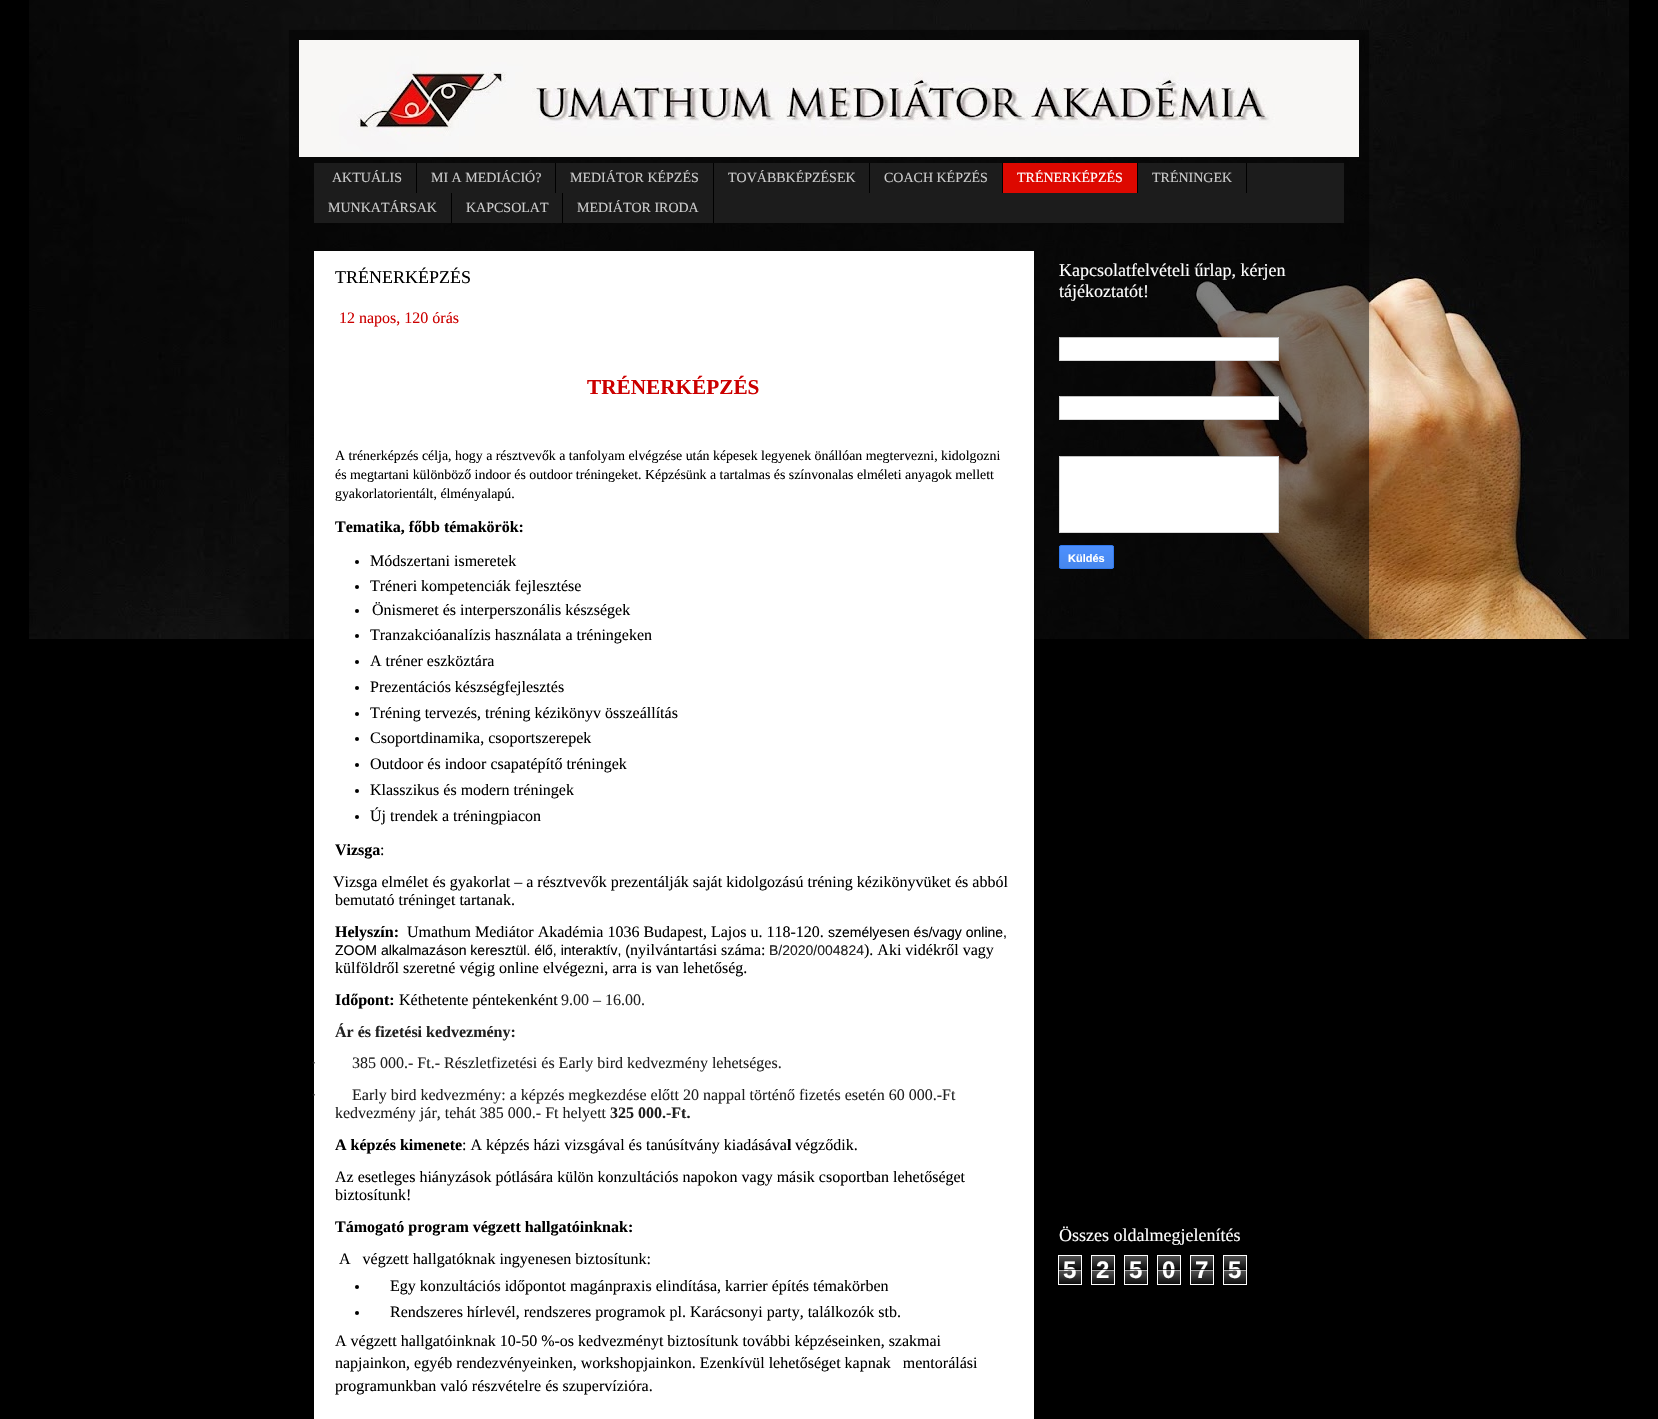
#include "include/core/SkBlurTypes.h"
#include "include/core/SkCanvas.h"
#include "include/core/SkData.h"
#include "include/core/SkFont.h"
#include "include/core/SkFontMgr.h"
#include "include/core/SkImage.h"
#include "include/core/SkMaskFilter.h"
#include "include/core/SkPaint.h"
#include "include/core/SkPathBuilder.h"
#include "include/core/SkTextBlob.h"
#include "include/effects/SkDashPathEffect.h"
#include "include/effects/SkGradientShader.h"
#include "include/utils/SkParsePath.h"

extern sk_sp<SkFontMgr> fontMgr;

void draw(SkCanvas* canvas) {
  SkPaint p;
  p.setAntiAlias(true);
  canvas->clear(SK_ColorBLACK);
  canvas->drawImageRect(SkImages::DeferredFromEncodedData(SkData::MakeFromFileName("images/1.png")), SkRect::MakeLTRB(29, 0, 1629, 639), SkSamplingOptions());
  canvas->save();
  canvas->clipPath(SkPathBuilder(SkPathFillType::kEvenOdd).moveTo(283, 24).lineTo(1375, 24).lineTo(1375, 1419).lineTo(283, 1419).close().moveTo(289, 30).lineTo(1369, 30).lineTo(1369, 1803).lineTo(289, 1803).close().detach(), true);
  p.setColor(SkColorSetARGB(38, 0, 0, 0));
  p.setMaskFilter(SkMaskFilter::MakeBlur(kNormal_SkBlurStyle, 1.5f));
  canvas->drawRect(SkRect::MakeLTRB(289, 30, 1369, 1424), p);
  p.setMaskFilter(nullptr);
  canvas->restore();
  p.setColor(SkColorSetARGB(128, 0, 0, 0));
  canvas->drawRect(SkRect::MakeLTRB(289, 30, 1369, 639), p);
  canvas->drawImageRect(SkImages::DeferredFromEncodedData(SkData::MakeFromFileName("images/2.png")), SkRect::MakeLTRB(299, 40, 1359, 157), SkSamplingOptions());
  p.setColor(SkColorSetRGB(28, 28, 28));
  canvas->drawRect(SkRect::MakeLTRB(314, 163, 1344, 223), p);
  p.setColor(SK_ColorBLACK);
  canvas->drawRect(SkRect::MakeLTRB(416, 163, 417, 193), p);
  canvas->drawRect(SkRect::MakeLTRB(555, 163, 556, 193), p);
  canvas->drawRect(SkRect::MakeLTRB(713, 163, 714, 223), p);
  canvas->drawRect(SkRect::MakeLTRB(869, 163, 870, 193), p);
  canvas->drawRect(SkRect::MakeLTRB(1002, 163, 1003, 193), p);
  p.setColor(SkColorSetRGB(221, 8, 0));
  canvas->drawRect(SkRect::MakeLTRB(1003, 163, 1137, 193), p);
  p.setColor(SK_ColorBLACK);
  canvas->drawRect(SkRect::MakeLTRB(1137, 163, 1138, 193), p);
  canvas->drawRect(SkRect::MakeLTRB(1246, 163, 1247, 193), p);
  canvas->drawRect(SkRect::MakeLTRB(451, 193, 452, 223), p);
  canvas->drawRect(SkRect::MakeLTRB(562, 193, 563, 223), p);
  p.setColor(SK_ColorWHITE);
  canvas->drawRect(SkRect::MakeLTRB(314, 251, 1034, 1419), p);
  p.setColor(SK_ColorBLACK);
  canvas->drawCircle(357, 562, 2, p);
  canvas->drawCircle(357, 587, 2, p);
  canvas->drawCircle(357, 611, 2, p);
  canvas->drawCircle(357, 636, 2, p);
  canvas->drawCircle(357, 662, 2, p);
  canvas->drawCircle(357, 688, 2, p);
  canvas->drawCircle(357, 714, 2, p);
  canvas->drawCircle(357, 739, 2, p);
  canvas->drawCircle(357, 765, 2, p);
  canvas->drawCircle(357, 791, 2, p);
  canvas->drawCircle(357, 817, 2, p);
  canvas->drawCircle(357, 1287, 2, p);
  canvas->drawCircle(357, 1313, 2, p);
  p.setColor(SK_ColorWHITE);
  canvas->drawRect(SkRect::MakeLTRB(1060, 338, 1278, 360), p);
  p.setColor(SkColorSetRGB(192, 192, 192));
  canvas->drawRect(SkRect::MakeLTRB(1059, 337, 1279, 338), p);
  p.setColor(SkColorSetRGB(217, 217, 217));
  canvas->drawRect(SkRect::MakeLTRB(1278, 337, 1279, 361), p);
  canvas->drawRect(SkRect::MakeLTRB(1059, 360, 1279, 361), p);
  canvas->drawRect(SkRect::MakeLTRB(1059, 337, 1060, 361), p);
  p.setColor(SK_ColorWHITE);
  canvas->drawRect(SkRect::MakeLTRB(1060, 397, 1278, 419), p);
  p.setColor(SkColorSetRGB(192, 192, 192));
  canvas->drawRect(SkRect::MakeLTRB(1059, 396, 1279, 397), p);
  p.setColor(SkColorSetRGB(217, 217, 217));
  canvas->drawRect(SkRect::MakeLTRB(1278, 396, 1279, 420), p);
  canvas->drawRect(SkRect::MakeLTRB(1059, 419, 1279, 420), p);
  canvas->drawRect(SkRect::MakeLTRB(1059, 396, 1060, 420), p);
  p.setColor(SK_ColorWHITE);
  canvas->drawRect(SkRect::MakeLTRB(1060, 457, 1278, 532), p);
  p.setColor(SkColorSetRGB(192, 192, 192));
  canvas->drawRect(SkRect::MakeLTRB(1059, 456, 1279, 457), p);
  p.setColor(SkColorSetRGB(217, 217, 217));
  canvas->drawRect(SkRect::MakeLTRB(1278, 456, 1279, 533), p);
  canvas->drawRect(SkRect::MakeLTRB(1059, 532, 1279, 533), p);
  canvas->drawRect(SkRect::MakeLTRB(1059, 456, 1060, 533), p);
  canvas->save();
  canvas->clipPath(SkPathBuilder().moveTo(1061, 545).lineTo(1112, 545).cubicTo(1113, 545, 1114, 546, 1114, 547).lineTo(1114, 567).cubicTo(1114, 568, 1113, 569, 1112, 569).lineTo(1061, 569).cubicTo(1060, 569, 1059, 568, 1059, 567).lineTo(1059, 547).cubicTo(1059, 546, 1060, 545, 1061, 545).close().detach(), true);
  {
    const SkColor colors[] = {SkColorSetRGB(77, 144, 254), SkColorSetRGB(71, 135, 237)};
    const float stops[] = {0, 1};
    const SkPoint ends[] = {{1087, 546}, {1087, 568}};
    p.setShader(SkGradientShader::MakeLinear(ends, colors, stops, 2, SkTileMode::kClamp));
    p.setAlpha(255);
  }
  canvas->drawRect(SkRect::MakeLTRB(1059, 546, 1114, 568), p);
  canvas->restore();
  p.setStyle(SkPaint::kStroke_Style);
  p.setStrokeWidth(1);
  p.setShader(nullptr);
  p.setColor(SkColorSetRGB(48, 121, 237));
  canvas->drawRoundRect(SkRect::MakeLTRB(1059.5f, 545.5f, 1113.5f, 568.5f), 1.5f, 1.5f, p);
  canvas->drawImageRect(SkImages::DeferredFromEncodedData(SkData::MakeFromFileName("images/3.png")), SkRect::MakeLTRB(1059, 1256, 1081, 1284), SkSamplingOptions());
  p.setColor(SK_ColorWHITE);
  canvas->drawRect(SkRect::MakeLTRB(1058.5f, 1255.5f, 1081.5f, 1284.5f), p);
  canvas->drawImageRect(SkImages::DeferredFromEncodedData(SkData::MakeFromFileName("images/3.png")), SkRect::MakeLTRB(1092, 1256, 1114, 1284), SkSamplingOptions());
  canvas->drawRect(SkRect::MakeLTRB(1091.5f, 1255.5f, 1114.5f, 1284.5f), p);
  canvas->drawImageRect(SkImages::DeferredFromEncodedData(SkData::MakeFromFileName("images/3.png")), SkRect::MakeLTRB(1125, 1256, 1147, 1284), SkSamplingOptions());
  canvas->drawRect(SkRect::MakeLTRB(1124.5f, 1255.5f, 1147.5f, 1284.5f), p);
  canvas->drawImageRect(SkImages::DeferredFromEncodedData(SkData::MakeFromFileName("images/3.png")), SkRect::MakeLTRB(1158, 1256, 1180, 1284), SkSamplingOptions());
  canvas->drawRect(SkRect::MakeLTRB(1157.5f, 1255.5f, 1180.5f, 1284.5f), p);
  canvas->drawImageRect(SkImages::DeferredFromEncodedData(SkData::MakeFromFileName("images/3.png")), SkRect::MakeLTRB(1191, 1256, 1213, 1284), SkSamplingOptions());
  canvas->drawRect(SkRect::MakeLTRB(1190.5f, 1255.5f, 1213.5f, 1284.5f), p);
  canvas->drawImageRect(SkImages::DeferredFromEncodedData(SkData::MakeFromFileName("images/3.png")), SkRect::MakeLTRB(1224, 1256, 1246, 1284), SkSamplingOptions());
  canvas->drawRect(SkRect::MakeLTRB(1223.5f, 1255.5f, 1246.5f, 1284.5f), p);
  SkFont font1(fontMgr->matchFamilyStyle("Liberation Serif", SkFontStyle::Normal()), 14);
  font1.setSubpixel(true);
  p.setStyle(SkPaint::kFill_Style);
  p.setColor(SkColorSetRGB(204, 204, 204));
  canvas->drawString("AKTUÁLIS", 332, 182, font1, p);
  canvas->drawString("MI A MEDIÁCIÓ?", 431, 182, font1, p);
  canvas->drawString("MEDIÁTOR KÉPZÉS", 570, 182, font1, p);
  canvas->drawString("TOVÁBBKÉPZÉSEK", 728, 182, font1, p);
  canvas->drawString("COACH KÉPZÉS", 884, 182, font1, p);
  p.setColor(SK_ColorWHITE);
  canvas->drawString("TRÉNERKÉPZÉS", 1017, 182, font1, p);
  p.setColor(SkColorSetRGB(204, 204, 204));
  canvas->drawString("TRÉNINGEK", 1152, 182, font1, p);
  canvas->drawString("MUNKATÁRSAK", 328, 212, font1, p);
  canvas->drawString("KAPCSOLAT", 466, 212, font1, p);
  canvas->drawString("MEDIÁTOR IRODA", 577, 212, font1, p);
  SkFont font2(fontMgr->matchFamilyStyle("Liberation Serif", SkFontStyle::Normal()), 18);
  font2.setSubpixel(true);
  p.setColor(SK_ColorBLACK);
  canvas->drawString("TRÉNERKÉPZÉS", 335, 283, font2, p);
  SkFont font3(fontMgr->matchFamilyStyle("Liberation Serif", SkFontStyle::Normal()), 16);
  font3.setSubpixel(true);
  p.setColor(SkColorSetRGB(204, 0, 0));
  canvas->drawString("12 napos, 120 órás", 339, 323, font3, p);
  SkFont font4(fontMgr->matchFamilyStyle("Liberation Serif", SkFontStyle::Bold()), 21.25f);
  font4.setSubpixel(true);
  canvas->drawString("TRÉNERKÉPZÉS", 587, 394, font4, p);
  SkFont font5(fontMgr->matchFamilyStyle("Liberation Serif", SkFontStyle::Normal()), 13.85f);
  font5.setSubpixel(true);
  p.setColor(SK_ColorBLACK);
  canvas->drawString("A trénerképzés célja, hogy a résztvevők a tanfolyam elvégzése után képesek legyenek önállóan megtervezni, kidolgozni", 335, 460, font5, p);
  canvas->drawString("és megtartani különböző indoor és outdoor tréningeket. Képzésünk a tartalmas és színvonalas elméleti anyagok mellett", 335, 479, font5, p);
  canvas->drawString("gyakorlatorientált, élményalapú.", 335, 498, font5, p);
  SkFont font6(fontMgr->matchFamilyStyle("Liberation Serif", SkFontStyle::Bold()), 16);
  font6.setSubpixel(true);
  canvas->drawString("Tematika, főbb témakörök:", 335, 532, font6, p);
  canvas->drawString("Módszertani ismeretek", 370, 566, font3, p);
  canvas->drawString("Tréneri kompetenciák fejlesztése", 370, 591, font3, p);
  canvas->drawString("Önismeret és interperszonális készségek", 372, 615, font3, p);
  canvas->drawString("Tranzakcióanalízis használata a tréningeken", 370, 640, font3, p);
  canvas->drawString("A tréner eszköztára", 370, 666, font3, p);
  canvas->drawString("Prezentációs készségfejlesztés", 370, 692, font3, p);
  canvas->drawString("Tréning tervezés, tréning kézikönyv összeállítás", 370, 718, font3, p);
  canvas->drawString("Csoportdinamika, csoportszerepek", 370, 743, font3, p);
  canvas->drawString("Outdoor és indoor csapatépítő tréningek", 370, 769, font3, p);
  canvas->drawString("Klasszikus és modern tréningek", 370, 795, font3, p);
  canvas->drawString("Új trendek a tréningpiacon", 370, 821, font3, p);
  canvas->drawString("Vizsga", 335, 855, font6, p);
  canvas->drawString(":", 380, 855, font3, p);
  canvas->drawString("Vizsga elmélet és gyakorlat – a résztvevők prezentálják saját kidolgozású tréning kézikönyvüket és abból", 333, 887, font3, p);
  canvas->drawString("bemutató tréninget tartanak.", 335, 905, font3, p);
  canvas->drawString("Helyszín:", 335, 937, font6, p);
  canvas->drawString("Umathum Mediátor Akadémia 1036 Budapest, Lajos u. 118-120.", 407, 937, font3, p);
  SkFont font7(fontMgr->matchFamilyStyle("Liberation Sans", SkFontStyle::Normal()), 14);
  font7.setSubpixel(true);
  canvas->drawString("személyesen és/vagy online,", 828, 937, font7, p);
  canvas->drawString("ZOOM alkalmazáson keresztül. élő, interaktív, (", 335, 955, font7, p);
  canvas->drawString("nyilvántartási száma:", 630, 955, font3, p);
  p.setColor(SkColorSetRGB(33, 33, 33));
  canvas->drawString("B/2020/004824", 769, 955, font7, p);
  p.setColor(SK_ColorBLACK);
  canvas->drawString("). Aki vidékről vagy", 864, 955, font3, p);
  canvas->drawString("külföldről szeretné végig online elvégezni, arra is van lehetőség.", 335, 973, font3, p);
  canvas->drawString("Időpont:", 335, 1005, font6, p);
  canvas->drawString("Kéthetente péntekenként", 399, 1005, font3, p);
  p.setColor(SkColorSetRGB(33, 33, 33));
  canvas->drawString("9.00 – 16.00.", 561, 1005, font3, p);
  canvas->drawString("Ár és fizetési kedvezmény:", 335, 1037, font6, p);
  canvas->drawString("·", 311, 1068, font3, p);
  canvas->drawString("385 000.- Ft.- Részletfizetési és Early bird kedvezmény lehetséges.", 352, 1068, font3, p);
  canvas->drawString("·", 311, 1100, font3, p);
  canvas->drawString("Early bird kedvezmény: a képzés megkezdése előtt 20 nappal történő fizetés esetén 60 000.-Ft", 352, 1100, font3, p);
  canvas->drawString("kedvezmény jár, tehát 385 000.- Ft helyett", 335, 1118, font3, p);
  canvas->drawString("325 000.-Ft.", 610, 1118, font6, p);
  p.setColor(SK_ColorBLACK);
  canvas->drawString("A képzés kimenete", 335, 1150, font6, p);
  canvas->drawString(": A képzés házi vizsgával és tanúsítvány kiadásáva", 462, 1150, font3, p);
  canvas->drawString("l", 787, 1150, font6, p);
  canvas->drawString("végződik.", 795, 1150, font3, p);
  canvas->drawString("Az esetleges hiányzások pótlására külön konzultációs napokon vagy másik csoportban lehetőséget", 335, 1182, font3, p);
  canvas->drawString("biztosítunk!", 335, 1200, font3, p);
  canvas->drawString("Támogató program végzett hallgatóinknak:", 335, 1232, font6, p);
  canvas->drawString("A   végzett hallgatóknak ingyenesen biztosítunk:", 339, 1264, font3, p);
  canvas->drawString("Egy konzultációs időpontot magánpraxis elindítása, karrier építés témakörben", 390, 1291, font3, p);
  canvas->drawString("Rendszeres hírlevél, rendszeres programok pl. Karácsonyi party, találkozók stb.", 390, 1317, font3, p);
  canvas->drawString("A végzett hallgatóinknak 10-50 %-os kedvezményt biztosítunk további képzéseinken, szakmai", 335, 1346, font3, p);
  canvas->drawString("napjainkon, egyéb rendezvényeinken, workshopjainkon. Ezenkívül lehetőséget kapnak   mentorálási", 335, 1368, font3, p);
  canvas->drawString("programunkban való részvételre és szupervízióra.", 335, 1391, font3, p);
  p.setColor(SK_ColorWHITE);
  canvas->drawString("Kapcsolatfelvételi űrlap, kérjen", 1059, 276, font2, p);
  canvas->drawString("tájékoztatót!", 1059, 297, font2, p);
  SkFont font8(fontMgr->matchFamilyStyle("Liberation Sans", SkFontStyle::Bold()), 11);
  font8.setSubpixel(true);
  canvas->drawString("Küldés", 1068, 562, font8, p);
  canvas->drawString("Összes oldalmegjelenítés", 1059, 1241, font2, p);
  SkFont font9(fontMgr->matchFamilyStyle("Liberation Sans", SkFontStyle::Bold()), 24);
  font9.setSubpixel(true);
  canvas->drawString("5", 1063, 1278, font9, p);
  p.setColor(SkColorSetARGB(166, 0, 0, 0));
  canvas->drawRect(SkRect::MakeLTRB(1059, 1269, 1081, 1270), p);
  p.setColor(SkColorSetARGB(166, 255, 255, 255));
  canvas->drawRect(SkRect::MakeLTRB(1059, 1270, 1081, 1271), p);
  p.setColor(SK_ColorWHITE);
  canvas->drawString("2", 1096, 1278, font9, p);
  p.setColor(SkColorSetARGB(166, 0, 0, 0));
  canvas->drawRect(SkRect::MakeLTRB(1092, 1269, 1114, 1270), p);
  p.setColor(SkColorSetARGB(166, 255, 255, 255));
  canvas->drawRect(SkRect::MakeLTRB(1092, 1270, 1114, 1271), p);
  p.setColor(SK_ColorWHITE);
  canvas->drawString("5", 1129, 1278, font9, p);
  p.setColor(SkColorSetARGB(166, 0, 0, 0));
  canvas->drawRect(SkRect::MakeLTRB(1125, 1269, 1147, 1270), p);
  p.setColor(SkColorSetARGB(166, 255, 255, 255));
  canvas->drawRect(SkRect::MakeLTRB(1125, 1270, 1147, 1271), p);
  p.setColor(SK_ColorWHITE);
  canvas->drawString("0", 1162, 1278, font9, p);
  p.setColor(SkColorSetARGB(166, 0, 0, 0));
  canvas->drawRect(SkRect::MakeLTRB(1158, 1269, 1180, 1270), p);
  p.setColor(SkColorSetARGB(166, 255, 255, 255));
  canvas->drawRect(SkRect::MakeLTRB(1158, 1270, 1180, 1271), p);
  p.setColor(SK_ColorWHITE);
  canvas->drawString("7", 1195, 1278, font9, p);
  p.setColor(SkColorSetARGB(166, 0, 0, 0));
  canvas->drawRect(SkRect::MakeLTRB(1191, 1269, 1213, 1270), p);
  p.setColor(SkColorSetARGB(166, 255, 255, 255));
  canvas->drawRect(SkRect::MakeLTRB(1191, 1270, 1213, 1271), p);
  p.setColor(SK_ColorWHITE);
  canvas->drawString("5", 1228, 1278, font9, p);
  p.setColor(SkColorSetARGB(166, 0, 0, 0));
  canvas->drawRect(SkRect::MakeLTRB(1224, 1269, 1246, 1270), p);
  p.setColor(SkColorSetARGB(166, 255, 255, 255));
  canvas->drawRect(SkRect::MakeLTRB(1224, 1270, 1246, 1271), p);
}
